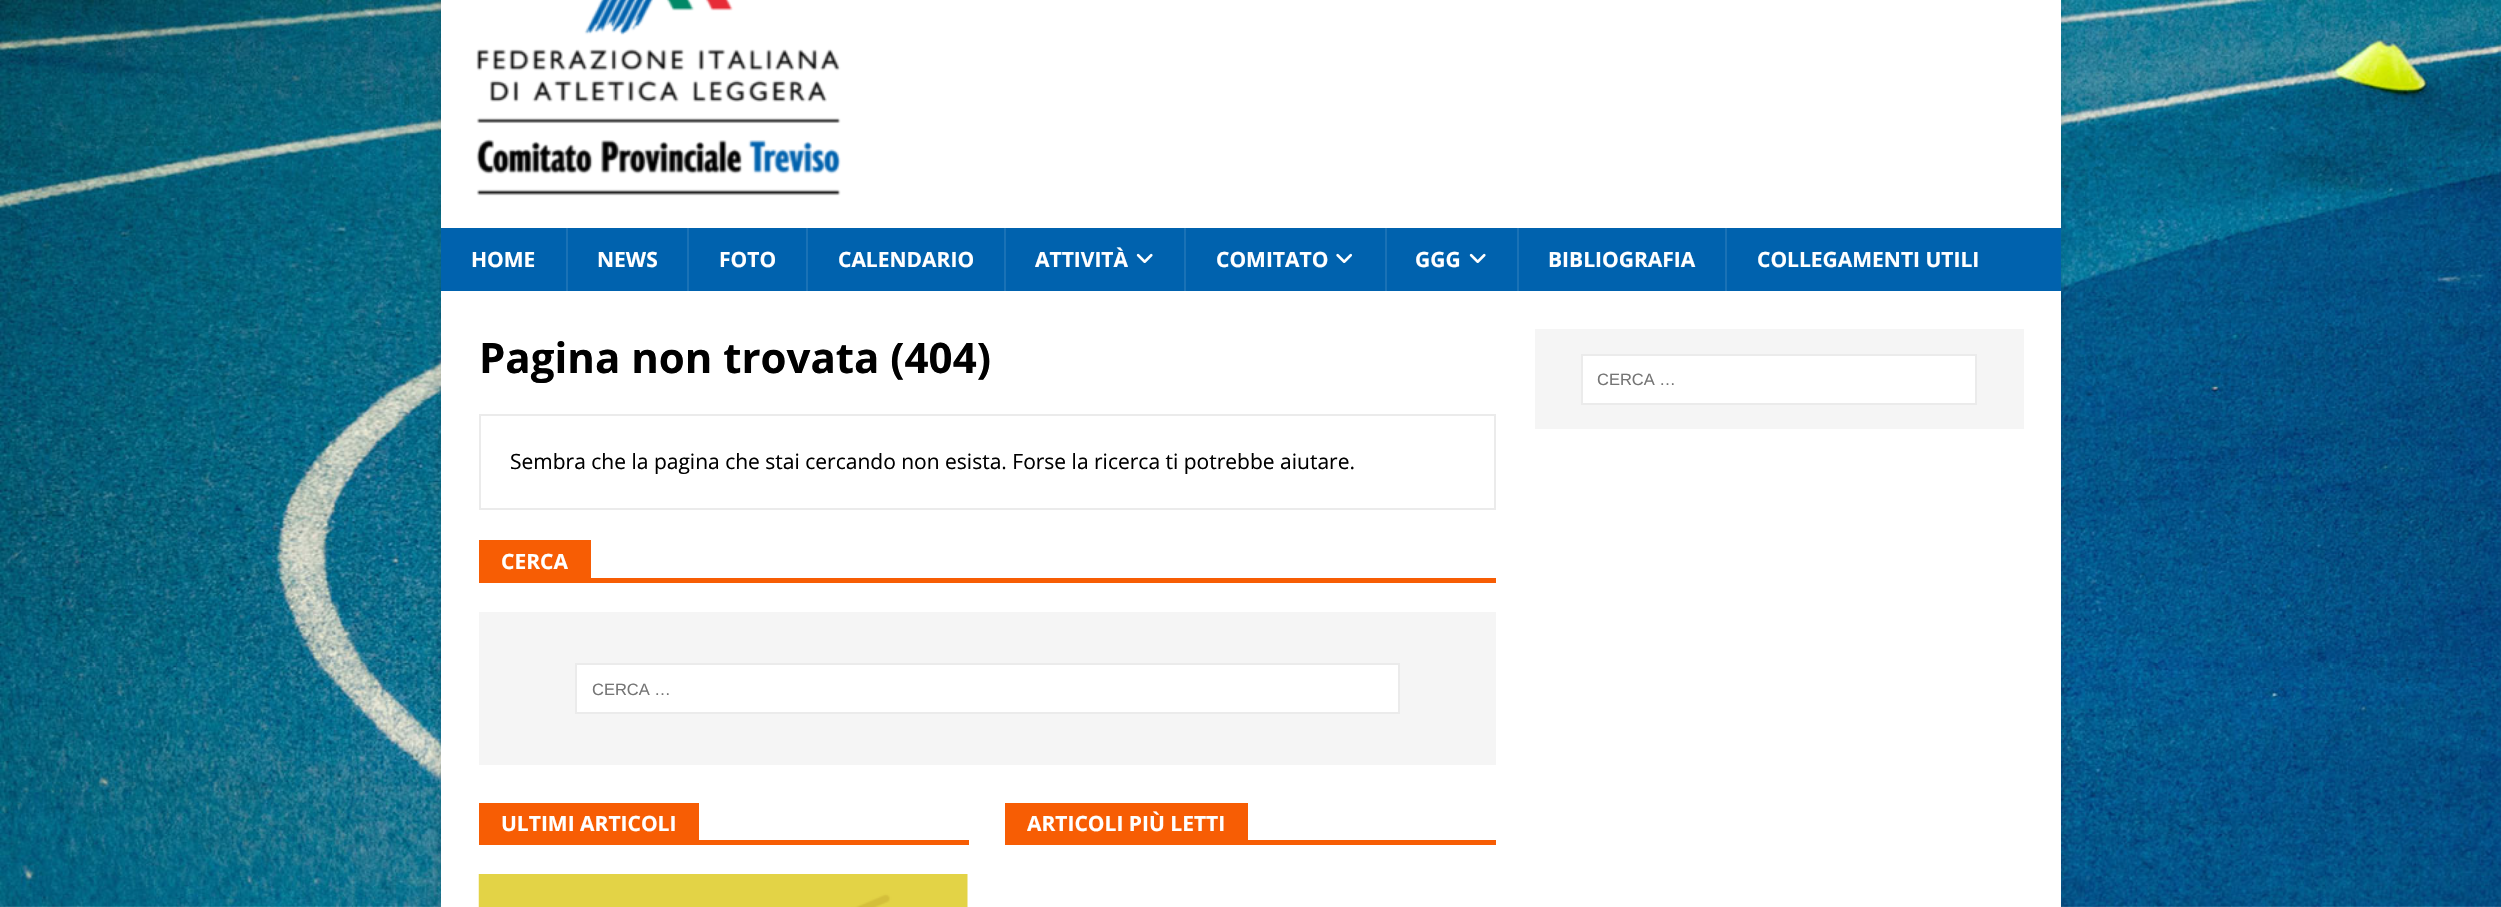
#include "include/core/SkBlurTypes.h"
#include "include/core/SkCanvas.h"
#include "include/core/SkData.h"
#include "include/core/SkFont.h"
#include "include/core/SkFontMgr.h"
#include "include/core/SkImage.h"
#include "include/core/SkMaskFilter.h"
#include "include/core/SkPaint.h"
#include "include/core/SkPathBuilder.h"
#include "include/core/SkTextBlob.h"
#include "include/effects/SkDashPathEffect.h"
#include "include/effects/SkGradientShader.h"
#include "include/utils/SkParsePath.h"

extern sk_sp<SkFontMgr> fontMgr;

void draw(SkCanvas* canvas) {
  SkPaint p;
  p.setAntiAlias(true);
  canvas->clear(SK_ColorWHITE);
  canvas->drawImageRect(SkImages::DeferredFromEncodedData(SkData::MakeFromFileName("images/1.png")), SkRect::MakeLTRB(0, 0, 2501, 907), SkSamplingOptions());
  p.setColor(SkColorSetARGB(43, 50, 50, 50));
  p.setMaskFilter(SkMaskFilter::MakeBlur(kNormal_SkBlurStyle, 7.5f));
  canvas->drawRect(SkRect::MakeLTRB(441, -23, 2061, 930), p);
  p.setMaskFilter(nullptr);
  p.setColor(SK_ColorWHITE);
  canvas->drawRect(SkRect::MakeLTRB(441, 0, 2061, 228), p);
  canvas->drawImageRect(SkImages::DeferredFromEncodedData(SkData::MakeFromFileName("images/2.png")), SkRect::MakeLTRB(476, 0, 841, 196), SkSamplingOptions());
  p.setColor(SkColorSetRGB(0, 98, 174));
  canvas->drawRect(SkRect::MakeLTRB(441, 228, 2061, 291), p);
  p.setColor(SkColorSetRGB(26, 114, 182));
  canvas->drawRect(SkRect::MakeLTRB(566, 228, 568, 291), p);
  canvas->drawRect(SkRect::MakeLTRB(687, 228, 689, 291), p);
  canvas->drawRect(SkRect::MakeLTRB(806, 228, 808, 291), p);
  canvas->drawRect(SkRect::MakeLTRB(1004, 228, 1006, 291), p);
  canvas->drawImageRect(SkImages::DeferredFromEncodedData(SkData::MakeFromFileName("images/3.png")), SkRect::MakeLTRB(1136, 253, 1153, 263), SkSamplingOptions());
  canvas->drawRect(SkRect::MakeLTRB(1184, 228, 1186, 291), p);
  canvas->drawImageRect(SkImages::DeferredFromEncodedData(SkData::MakeFromFileName("images/4.png")), SkRect::MakeLTRB(1336, 253, 1352, 263), SkSamplingOptions());
  canvas->drawRect(SkRect::MakeLTRB(1385, 228, 1387, 291), p);
  canvas->drawImageRect(SkImages::DeferredFromEncodedData(SkData::MakeFromFileName("images/3.png")), SkRect::MakeLTRB(1469, 253, 1486, 263), SkSamplingOptions());
  canvas->drawRect(SkRect::MakeLTRB(1517, 228, 1519, 291), p);
  canvas->drawRect(SkRect::MakeLTRB(1725, 228, 1727, 291), p);
  p.setColor(SK_ColorWHITE);
  canvas->drawRect(SkRect::MakeLTRB(441, 291, 2061, 907), p);
  p.setStyle(SkPaint::kStroke_Style);
  p.setStrokeWidth(2);
  p.setColor(SkColorSetRGB(235, 235, 235));
  canvas->drawRect(SkRect::MakeLTRB(480, 415, 1495, 509), p);
  p.setStyle(SkPaint::kFill_Style);
  p.setColor(SkColorSetRGB(247, 93, 4));
  canvas->drawRect(SkRect::MakeLTRB(479, 578, 1496, 583), p);
  canvas->drawRect(SkRect::MakeLTRB(479, 540, 591, 578), p);
  p.setColor(SkColorSetRGB(245, 245, 245));
  canvas->drawRect(SkRect::MakeLTRB(479, 612, 1496, 765), p);
  p.setColor(SK_ColorWHITE);
  canvas->drawRect(SkRect::MakeLTRB(576, 664, 1399, 713), p);
  p.setStyle(SkPaint::kStroke_Style);
  p.setColor(SkColorSetRGB(235, 235, 235));
  canvas->drawRect(SkRect::MakeLTRB(576, 664, 1399, 713), p);
  p.setStyle(SkPaint::kFill_Style);
  p.setColor(SkColorSetRGB(247, 93, 4));
  canvas->drawRect(SkRect::MakeLTRB(479, 840, 969, 845), p);
  canvas->drawRect(SkRect::MakeLTRB(479, 803, 699, 840), p);
  canvas->drawImageRect(SkImages::DeferredFromEncodedData(SkData::MakeFromFileName("images/5.png")), SkRect::MakeLTRB(478, 874, 968, 907), SkSamplingOptions());
  canvas->drawRect(SkRect::MakeLTRB(1005, 840, 1496, 845), p);
  canvas->drawRect(SkRect::MakeLTRB(1005, 803, 1248, 840), p);
  p.setColor(SkColorSetRGB(245, 245, 245));
  canvas->drawRect(SkRect::MakeLTRB(1535, 329, 2024, 429), p);
  p.setColor(SK_ColorWHITE);
  canvas->drawRect(SkRect::MakeLTRB(1582, 355, 1976, 404), p);
  p.setStyle(SkPaint::kStroke_Style);
  p.setColor(SkColorSetRGB(235, 235, 235));
  canvas->drawRect(SkRect::MakeLTRB(1582, 355, 1976, 404), p);
  SkFont font1(fontMgr->matchFamilyStyle("Open Sans", SkFontStyle::Bold()), 21);
  font1.setSubpixel(true);
  p.setStyle(SkPaint::kFill_Style);
  p.setColor(SK_ColorWHITE);
  canvas->drawString("HOME", 471, 267, font1, p);
  canvas->drawString("NEWS", 597, 267, font1, p);
  canvas->drawString("FOTO", 719, 267, font1, p);
  canvas->drawString("CALENDARIO", 838, 267, font1, p);
  canvas->drawString("ATTIVITÀ", 1035, 267, font1, p);
  canvas->drawString("COMITATO", 1216, 267, font1, p);
  canvas->drawString("GGG", 1415, 267, font1, p);
  canvas->drawString("BIBLIOGRAFIA", 1548, 267, font1, p);
  canvas->drawString("COLLEGAMENTI UTILI", 1757, 267, font1, p);
  SkFont font2(fontMgr->matchFamilyStyle("Open Sans", SkFontStyle::Bold()), 42);
  font2.setSubpixel(true);
  p.setColor(SK_ColorBLACK);
  canvas->drawString("Pagina non trovata (404)", 479, 373, font2, p);
  SkFont font3(fontMgr->matchFamilyStyle("Open Sans", SkFontStyle::Normal()), 21);
  font3.setSubpixel(true);
  canvas->drawString("Sembra che la pagina che stai cercando non esista. Forse la ricerca ti potrebbe aiutare.", 510, 469, font3, p);
  p.setColor(SK_ColorWHITE);
  canvas->drawString("CERCA", 501, 569, font1, p);
  SkFont font4(fontMgr->matchFamilyStyle("Liberation Sans", SkFontStyle::Normal()), 16.5f);
  font4.setSubpixel(true);
  p.setColor(SkColorSetRGB(117, 117, 117));
  canvas->drawString("CERCA …", 592, 695, font4, p);
  p.setColor(SK_ColorWHITE);
  canvas->drawString("ULTIMI ARTICOLI", 501, 831, font1, p);
  canvas->drawString("ARTICOLI PIÙ LETTI", 1027, 831, font1, p);
  p.setColor(SkColorSetRGB(117, 117, 117));
  canvas->drawString("CERCA …", 1597, 385, font4, p);
}
